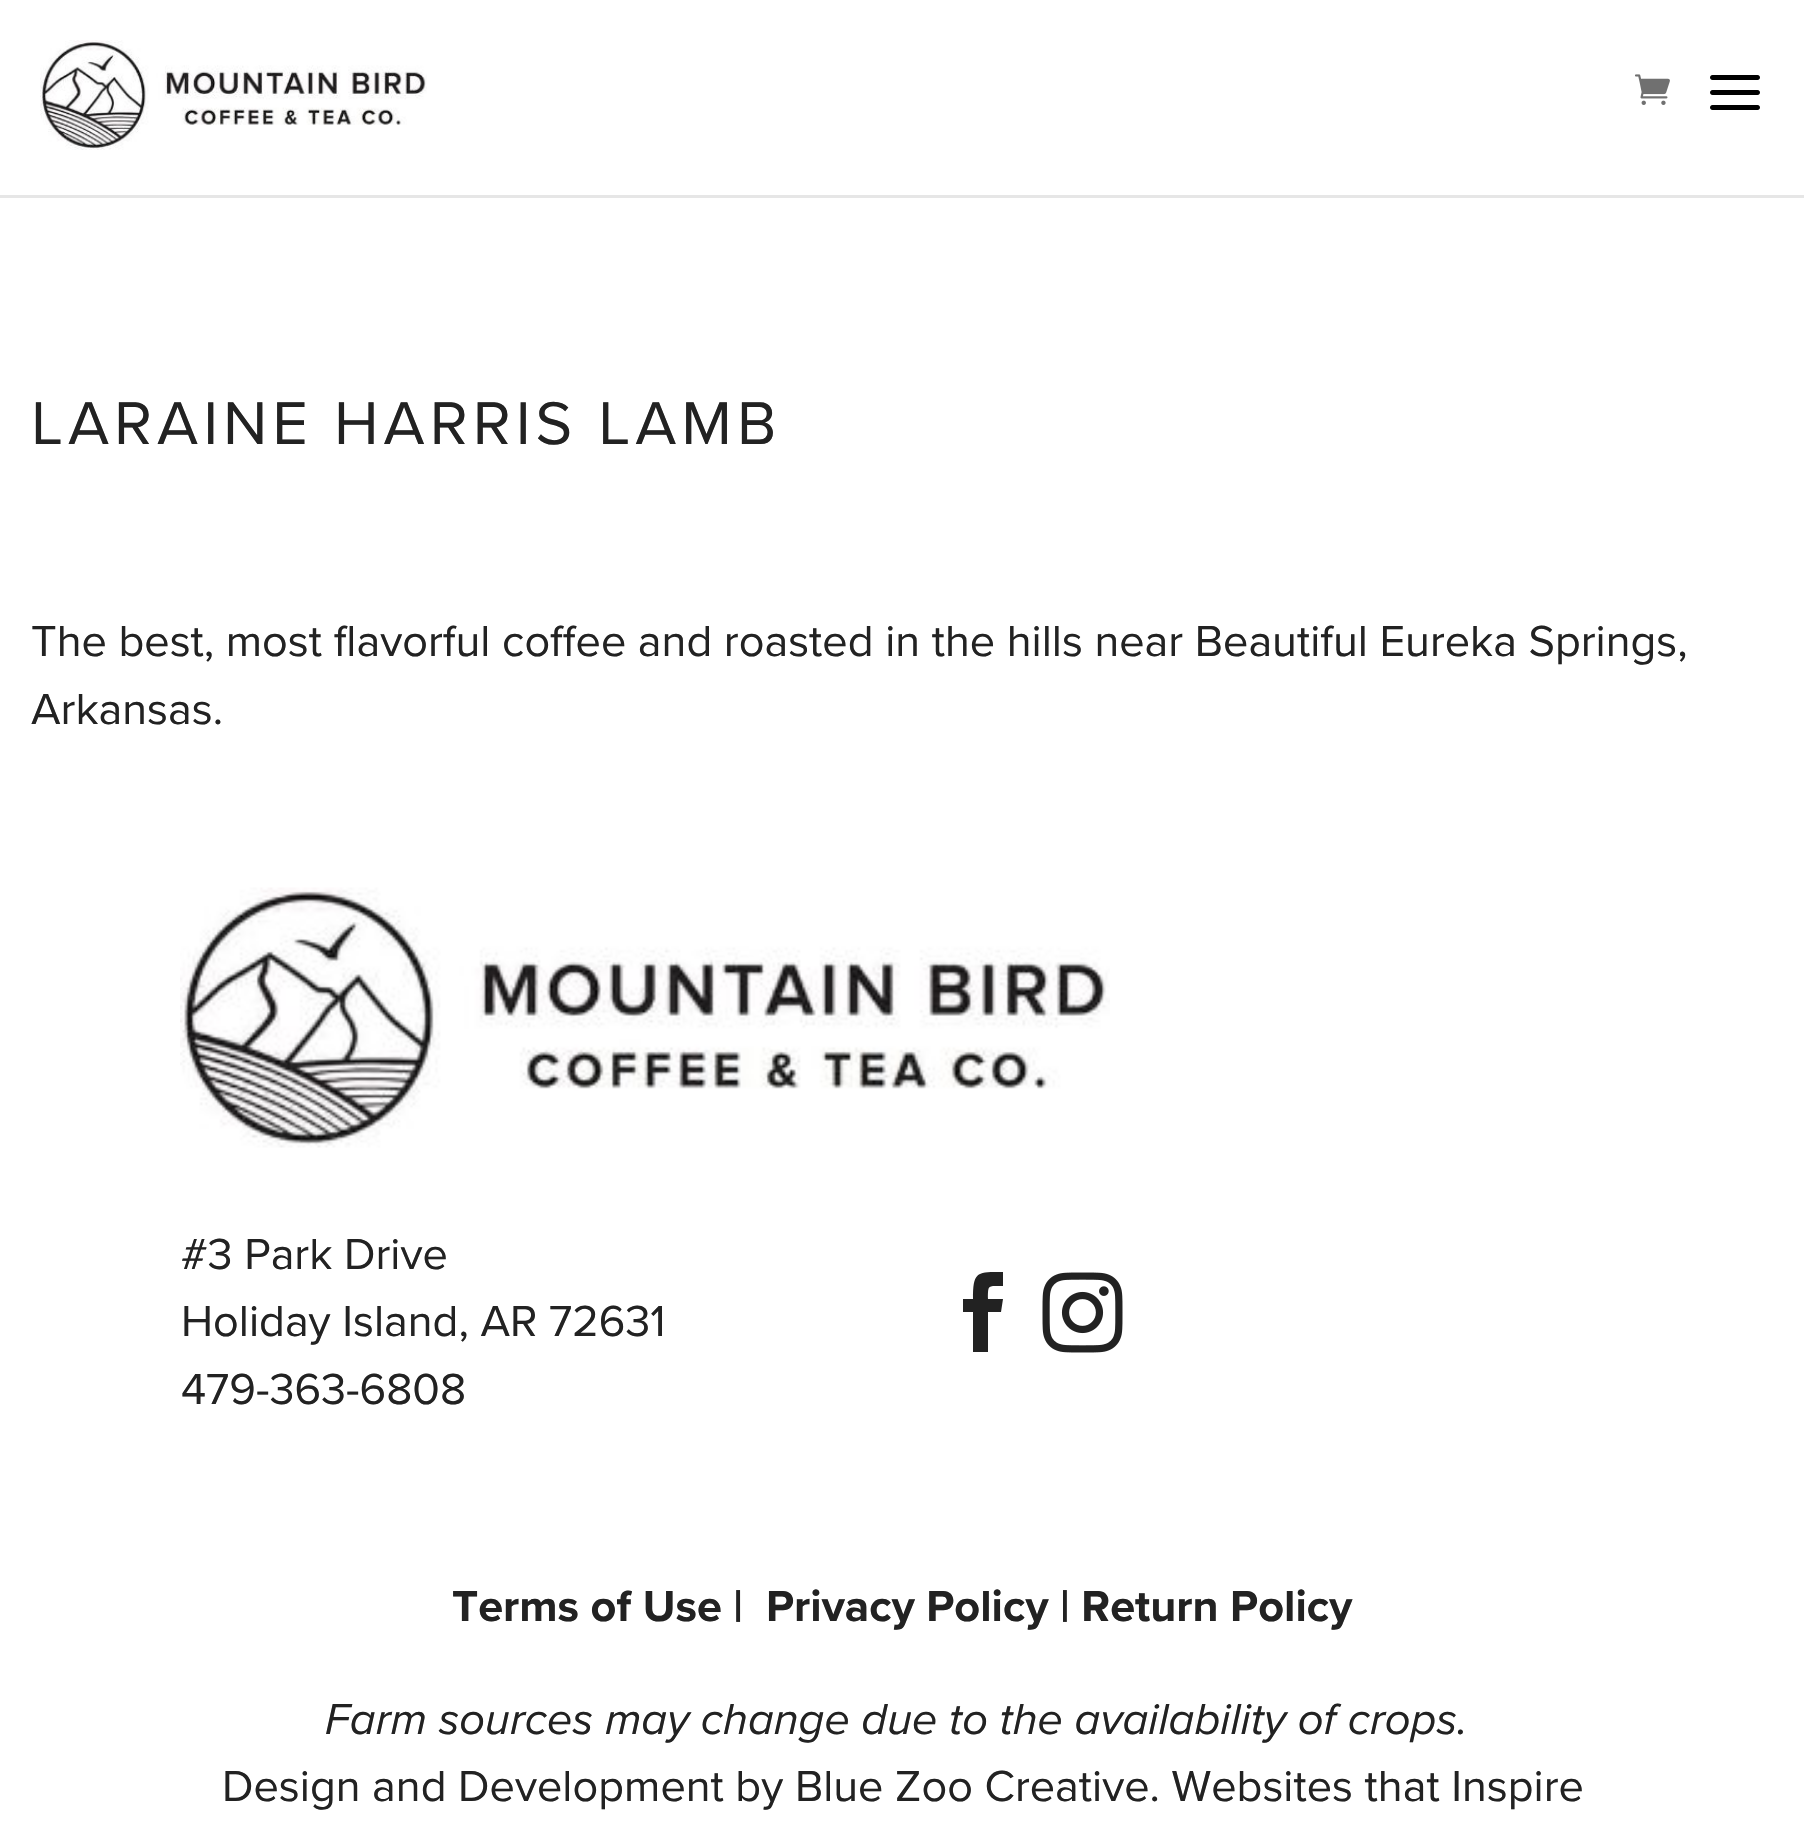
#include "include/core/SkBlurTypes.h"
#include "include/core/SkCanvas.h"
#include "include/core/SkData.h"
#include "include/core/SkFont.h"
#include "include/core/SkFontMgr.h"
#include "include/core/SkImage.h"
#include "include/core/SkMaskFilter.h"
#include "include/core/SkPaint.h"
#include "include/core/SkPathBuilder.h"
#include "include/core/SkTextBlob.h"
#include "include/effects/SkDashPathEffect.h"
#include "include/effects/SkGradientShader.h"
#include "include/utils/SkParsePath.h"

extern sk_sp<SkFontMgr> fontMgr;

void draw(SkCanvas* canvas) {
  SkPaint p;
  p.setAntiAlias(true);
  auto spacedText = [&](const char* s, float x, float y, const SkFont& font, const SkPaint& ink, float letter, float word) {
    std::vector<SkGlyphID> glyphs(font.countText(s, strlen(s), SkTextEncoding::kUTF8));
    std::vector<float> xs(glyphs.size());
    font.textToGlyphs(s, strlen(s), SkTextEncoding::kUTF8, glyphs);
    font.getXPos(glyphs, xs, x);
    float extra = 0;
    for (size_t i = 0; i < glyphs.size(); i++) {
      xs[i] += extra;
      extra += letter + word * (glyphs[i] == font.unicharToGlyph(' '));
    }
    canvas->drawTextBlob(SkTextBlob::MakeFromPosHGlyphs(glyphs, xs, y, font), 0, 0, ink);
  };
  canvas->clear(SK_ColorWHITE);
  p.setColor(SkColorSetRGB(230, 230, 230));
  canvas->drawRect(SkRect::MakeLTRB(0, 195, 1804, 198), p);
  canvas->drawImageRect(SkImages::DeferredFromEncodedData(SkData::MakeFromFileName("images/1.png")), SkRect::MakeLTRB(40, 40, 427, 150), SkSamplingOptions());
  canvas->drawImageRect(SkImages::DeferredFromEncodedData(SkData::MakeFromFileName("images/2.png")), SkRect::MakeLTRB(1635, 74, 1670, 105), SkSamplingOptions());
  canvas->drawImageRect(SkImages::DeferredFromEncodedData(SkData::MakeFromFileName("images/3.png")), SkRect::MakeLTRB(1710, 75, 1760, 110), SkSamplingOptions());
  canvas->drawImageRect(SkImages::DeferredFromEncodedData(SkData::MakeFromFileName("images/4.png")), SkRect::MakeLTRB(180, 887, 1110, 1148), SkSamplingOptions());
  p.setColor(SkColorSetRGB(34, 34, 34));
  canvas->drawPath(SkPathBuilder().moveTo(973, 1352).lineTo(988, 1352).lineTo(988, 1312).lineTo(1001, 1312).lineTo(1003, 1299).lineTo(988, 1299).cubicTo(988, 1284, 988, 1286, 1003, 1286).lineTo(1003, 1272).cubicTo(977, 1272, 973, 1271, 973, 1299).lineTo(963, 1299).lineTo(963, 1312).lineTo(973, 1312).close().detach(), p);
  canvas->drawImageRect(SkImages::DeferredFromEncodedData(SkData::MakeFromFileName("images/5.png")), SkRect::MakeLTRB(1042, 1272, 1123, 1353), SkSamplingOptions());
  SkFont font1(fontMgr->matchFamilyStyle("Proxima Nova", SkFontStyle::Normal()), 62.5f);
  font1.setSubpixel(true);
  spacedText("LARAINE HARRIS LAMB", 31, 444, font1, p, 5, 0);
  SkFont font2(fontMgr->matchFamilyStyle("Proxima Nova", SkFontStyle::Normal()), 45);
  font2.setSubpixel(true);
  canvas->drawString("The best, most flavorful coffee and roasted in the hills near Beautiful Eureka Springs,", 31, 656, font2, p);
  canvas->drawString("Arkansas.", 31, 724, font2, p);
  canvas->drawString("#3 Park Drive", 181, 1269, font2, p);
  canvas->drawString("Holiday Island, AR 72631", 181, 1336, font2, p);
  canvas->drawString("479-363-6808", 181, 1404, font2, p);
  SkFont font3(fontMgr->matchFamilyStyle("Proxima Nova", SkFontStyle::Bold()), 45);
  font3.setSubpixel(true);
  canvas->drawString("Terms of Use |", 452, 1621, font3, p);
  canvas->drawString("Privacy Policy | Return Policy", 766, 1621, font3, p);
  SkFont font4(fontMgr->matchFamilyStyle("Proxima Nova", SkFontStyle::Italic()), 45);
  font4.setSubpixel(true);
  canvas->drawString("Farm sources may change due to the availability of crops.", 325, 1734, font4, p);
  canvas->drawString("Design and Development by Blue Zoo Creative. Websites that Inspire", 222, 1801, font2, p);
}
